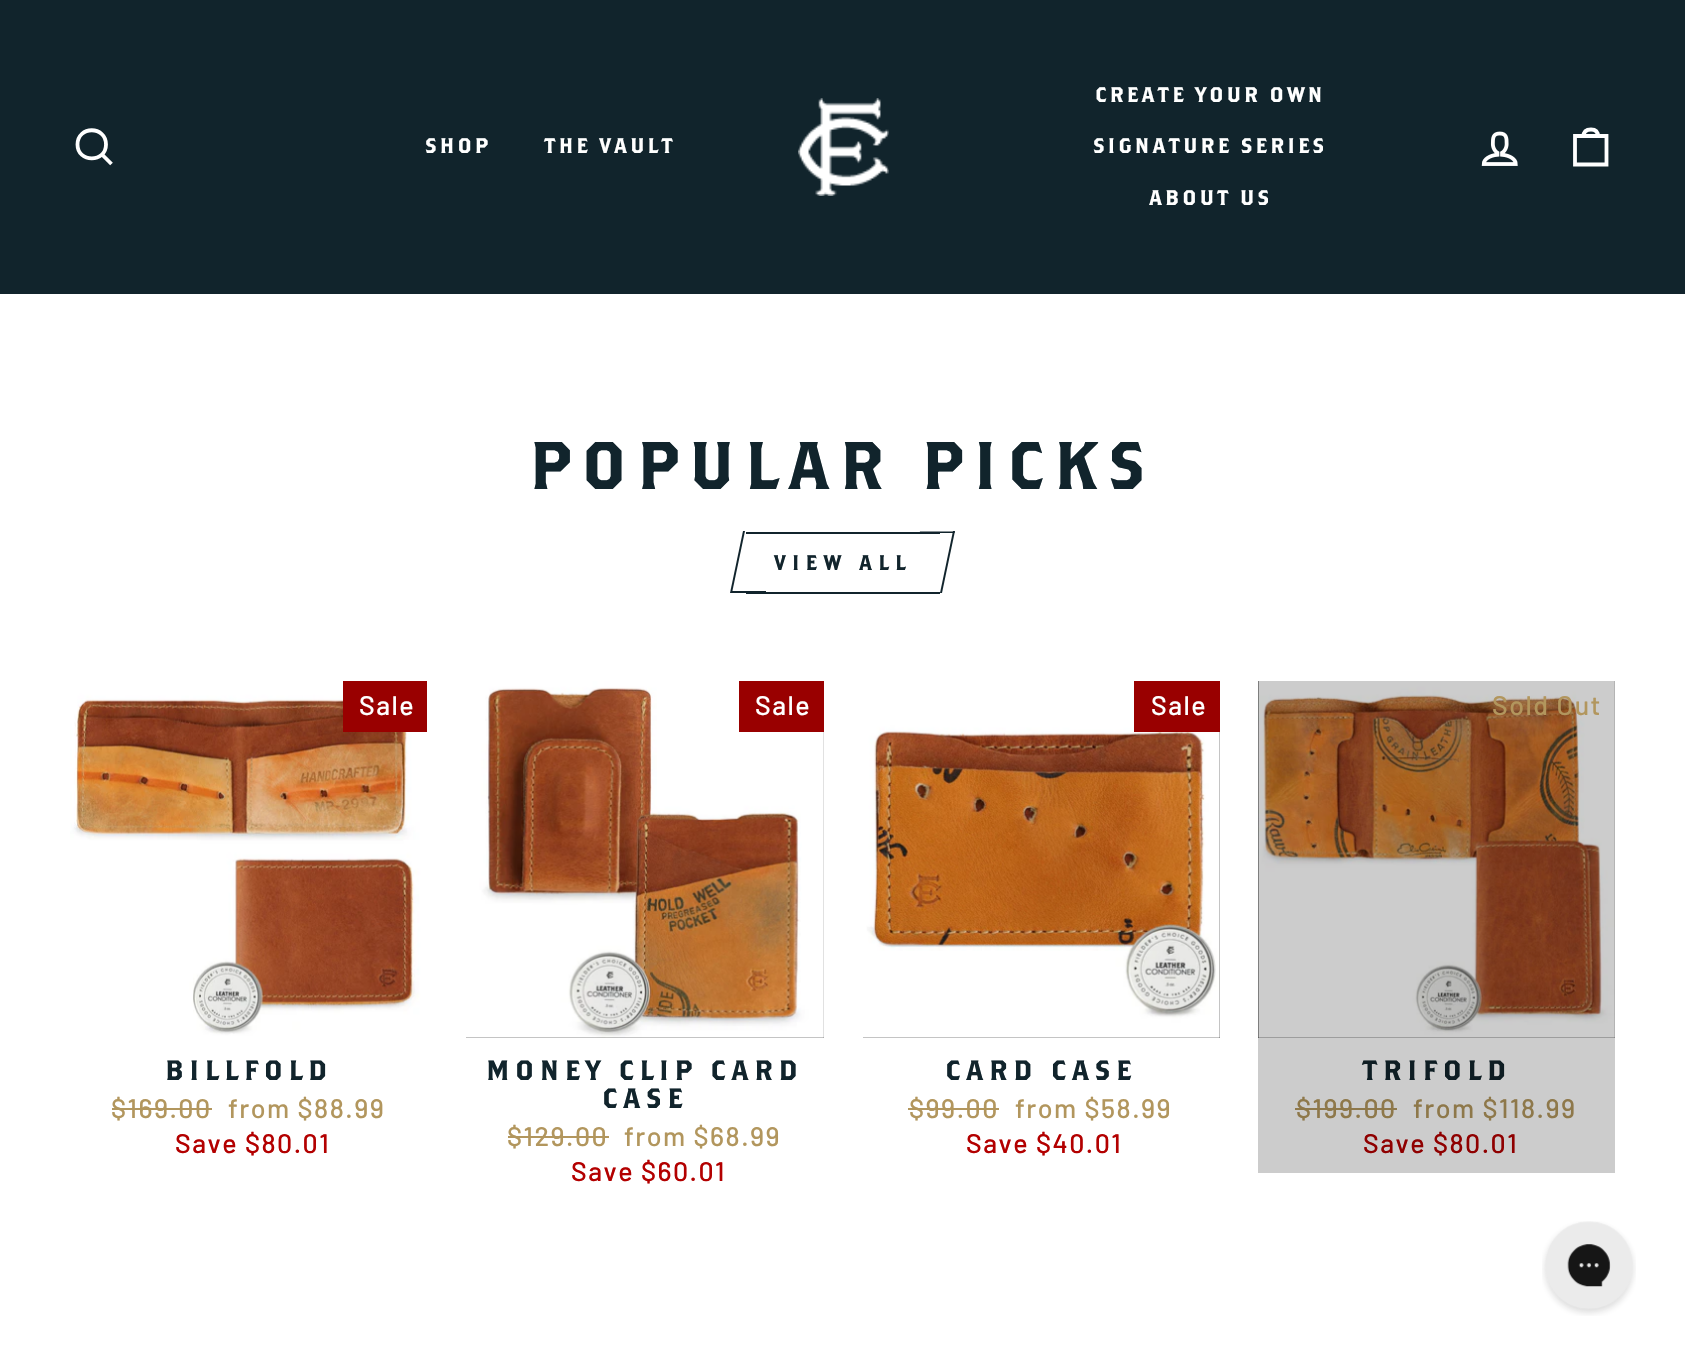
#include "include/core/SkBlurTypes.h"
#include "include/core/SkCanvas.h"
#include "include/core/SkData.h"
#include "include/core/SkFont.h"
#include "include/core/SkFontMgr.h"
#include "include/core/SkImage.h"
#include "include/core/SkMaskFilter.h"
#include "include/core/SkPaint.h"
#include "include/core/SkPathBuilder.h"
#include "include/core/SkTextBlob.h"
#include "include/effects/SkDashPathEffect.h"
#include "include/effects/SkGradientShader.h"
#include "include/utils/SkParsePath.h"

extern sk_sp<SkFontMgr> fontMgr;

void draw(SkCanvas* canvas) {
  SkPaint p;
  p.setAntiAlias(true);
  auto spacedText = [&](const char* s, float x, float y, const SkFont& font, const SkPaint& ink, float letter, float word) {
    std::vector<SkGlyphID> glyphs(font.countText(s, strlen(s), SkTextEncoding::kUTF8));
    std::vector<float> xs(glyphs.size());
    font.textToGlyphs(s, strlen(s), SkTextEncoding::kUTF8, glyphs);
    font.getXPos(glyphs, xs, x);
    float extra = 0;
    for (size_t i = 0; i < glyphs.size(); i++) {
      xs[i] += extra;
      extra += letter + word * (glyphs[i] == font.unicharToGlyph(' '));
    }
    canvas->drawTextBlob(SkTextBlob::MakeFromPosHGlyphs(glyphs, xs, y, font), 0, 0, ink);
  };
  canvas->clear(SK_ColorWHITE);
  p.setColor(SkColorSetRGB(204, 204, 204));
  canvas->drawRect(SkRect::MakeLTRB(1258, 1038, 1615, 1173), p);
  p.setColor(SkColorSetRGB(17, 36, 44));
  canvas->drawRect(SkRect::MakeLTRB(0, 0, 1685, 294), p);
  p.setStyle(SkPaint::kStroke_Style);
  p.setStrokeWidth(3.8f);
  p.setColor(SK_ColorWHITE);
  canvas->drawPath(SkPathBuilder().moveTo(106, 144.5f).cubicTo(106, 163, 77.5f, 163, 77.5f, 144.5f).cubicTo(77.5f, 125.5f, 106, 125.5f, 106, 144.5f).close().moveTo(111.5f, 164).lineTo(102, 154.5f).detach(), p);
  canvas->drawImageRect(SkImages::DeferredFromEncodedData(SkData::MakeFromFileName("images/1.png")), SkRect::MakeLTRB(798, 98, 889, 196), SkSamplingOptions());
  canvas->drawImageRect(SkImages::DeferredFromEncodedData(SkData::MakeFromFileName("images/2.png")), SkRect::MakeLTRB(1481, 131, 1518, 166), SkSamplingOptions());
  canvas->drawPath(SkPathBuilder().moveTo(1575, 136).lineTo(1606.5f, 136).lineTo(1606.5f, 164.5f).lineTo(1575, 164.5f).close().moveTo(1583.5f, 136.5f).cubicTo(1583.5f, 131, 1586.5f, 129.5f, 1591, 129.5f).cubicTo(1595, 129.5f, 1598, 131, 1598, 136.5f).detach(), p);
  p.setStyle(SkPaint::kFill_Style);
  p.setColor(SkColorSetRGB(17, 36, 44));
  canvas->drawRect(SkRect::MakeLTRB(746, 532, 940, 534), p);
  canvas->drawRect(SkRect::MakeLTRB(746, 592, 940, 594), p);
  canvas->drawRect(SkRect::MakeLTRB(731, 591, 766, 593), p);
  canvas->drawPath(SkPathBuilder().moveTo(743, 531).lineTo(745, 531).lineTo(732, 593).lineTo(730, 593).close().detach(), p);
  canvas->drawPath(SkPathBuilder().moveTo(920, 531.5f).lineTo(955, 531.5f).lineTo(954.5f, 533).lineTo(919.5f, 533).close().detach(), p);
  canvas->drawPath(SkPathBuilder().moveTo(953, 531).lineTo(955, 531).lineTo(942, 593).lineTo(940, 593).close().detach(), p);
  canvas->drawImageRect(SkImages::DeferredFromEncodedData(SkData::MakeFromFileName("images/3.png")), SkRect::MakeLTRB(70, 681, 427, 1038), SkSamplingOptions());
  p.setColor(SkColorSetRGB(153, 0, 0));
  canvas->drawRect(SkRect::MakeLTRB(343, 681, 427, 732), p);
  p.setColor(SkColorSetRGB(178, 150, 93));
  canvas->drawRect(SkRect::MakeLTRB(112, 1108, 212, 1110), p);
  p.setColor(SK_ColorBLACK);
  canvas->drawRect(SkRect::MakeLTRB(466, 732, 824, 1038), p);
  canvas->drawImageRect(SkImages::DeferredFromEncodedData(SkData::MakeFromFileName("images/4.png")), SkRect::MakeLTRB(466, 681, 824, 1038), SkSamplingOptions());
  p.setColor(SkColorSetRGB(153, 0, 0));
  canvas->drawRect(SkRect::MakeLTRB(739, 681, 824, 732), p);
  p.setColor(SkColorSetRGB(178, 150, 93));
  canvas->drawRect(SkRect::MakeLTRB(508, 1136, 609, 1138), p);
  p.setColor(SK_ColorBLACK);
  canvas->drawRect(SkRect::MakeLTRB(863, 732, 1220, 1038), p);
  canvas->drawImageRect(SkImages::DeferredFromEncodedData(SkData::MakeFromFileName("images/5.png")), SkRect::MakeLTRB(863, 681, 1220, 1038), SkSamplingOptions());
  p.setColor(SkColorSetRGB(153, 0, 0));
  canvas->drawRect(SkRect::MakeLTRB(1134, 681, 1220, 732), p);
  p.setColor(SkColorSetRGB(178, 150, 93));
  canvas->drawRect(SkRect::MakeLTRB(908, 1108, 999, 1110), p);
  p.setColor(SK_ColorBLACK);
  canvas->drawRect(SkRect::MakeLTRB(1258, 681, 1615, 1038), p);
  canvas->drawImageRect(SkImages::DeferredFromEncodedData(SkData::MakeFromFileName("images/6.png")), SkRect::MakeLTRB(1258, 681, 1615, 1038), SkSamplingOptions());
  p.setColor(SkColorSetRGB(142, 120, 74));
  canvas->drawRect(SkRect::MakeLTRB(1295, 1108, 1397, 1110), p);
  canvas->drawImageRect(SkImages::DeferredFromEncodedData(SkData::MakeFromFileName("images/7.png")), SkRect::MakeLTRB(1542, 1221, 1636, 1316), SkSamplingOptions());
  SkFont font1(fontMgr->matchFamilyStyle("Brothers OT", SkFontStyle::Normal()), 21);
  font1.setSubpixel(true);
  p.setColor(SK_ColorWHITE);
  spacedText("SHOP", 425, 153, font1, p, 3.1f, 0);
  spacedText("THE VAULT", 544, 153, font1, p, 3.1f, 0);
  spacedText("CREATE YOUR OWN", 1095, 102, font1, p, 3.1f, 0);
  spacedText("SIGNATURE SERIES", 1093, 153, font1, p, 3.1f, 0);
  spacedText("ABOUT US", 1149, 205, font1, p, 3.1f, 0);
  SkFont font2(fontMgr->matchFamilyStyle("Brothers OT", SkFontStyle::Normal()), 67);
  font2.setSubpixel(true);
  p.setColor(SkColorSetRGB(17, 36, 44));
  spacedText("POPULAR PICKS", 529, 489, font2, p, 10, 0);
  spacedText("VIEW ALL", 774, 570, font1, p, 6.25f, 0);
  SkFont font3(fontMgr->matchFamilyStyle("Barlow", SkFontStyle(500, SkFontStyle::kNormal_Width, SkFontStyle::kUpright_Slant)), 26.75f);
  font3.setSubpixel(true);
  p.setColor(SK_ColorWHITE);
  spacedText("Sale", 359, 715, font3, p, 1.5f, 0);
  SkFont font4(fontMgr->matchFamilyStyle("Brothers OT", SkFontStyle::Normal()), 28);
  font4.setSubpixel(true);
  p.setColor(SkColorSetRGB(17, 36, 44));
  spacedText("BILLFOLD", 165, 1080, font4, p, 5.6f, 0);
  p.setColor(SkColorSetRGB(178, 150, 93));
  spacedText("$169.00", 111, 1118, font3, p, 1.5f, 0);
  spacedText("from $88.99", 228, 1118, font3, p, 1.5f, 0);
  p.setColor(SkColorSetRGB(179, 0, 0));
  spacedText("Save $80.01", 175, 1153, font3, p, 1.5f, 0);
  p.setColor(SK_ColorWHITE);
  spacedText("Sale", 755, 715, font3, p, 1.5f, 0);
  p.setColor(SkColorSetRGB(17, 36, 44));
  spacedText("MONEY CLIP CARD", 486, 1080, font4, p, 5.6f, 0);
  spacedText("CASE", 602, 1108, font4, p, 5.6f, 0);
  p.setColor(SkColorSetRGB(178, 150, 93));
  spacedText("$129.00", 507, 1146, font3, p, 1.5f, 0);
  spacedText("from $68.99", 624, 1146, font3, p, 1.5f, 0);
  p.setColor(SkColorSetRGB(179, 0, 0));
  spacedText("Save $60.01", 571, 1181, font3, p, 1.5f, 0);
  p.setColor(SK_ColorWHITE);
  spacedText("Sale", 1151, 715, font3, p, 1.5f, 0);
  p.setColor(SkColorSetRGB(17, 36, 44));
  spacedText("CARD CASE", 945, 1080, font4, p, 5.6f, 0);
  p.setColor(SkColorSetRGB(178, 150, 93));
  spacedText("$99.00", 909, 1118, font3, p, 1.5f, 0);
  spacedText("from $58.99", 1015, 1118, font3, p, 1.5f, 0);
  p.setColor(SkColorSetRGB(179, 0, 0));
  spacedText("Save $40.01", 966, 1153, font3, p, 1.5f, 0);
  p.setColor(SkColorSetRGB(178, 150, 93));
  spacedText("Sold Out", 1492, 715, font3, p, 1.5f, 0);
  p.setColor(SkColorSetRGB(14, 29, 35));
  spacedText("TRIFOLD", 1362, 1080, font4, p, 5.6f, 0);
  p.setColor(SkColorSetRGB(142, 120, 74));
  spacedText("$199.00", 1296, 1118, font3, p, 1.5f, 0);
  spacedText("from $118.99", 1413, 1118, font3, p, 1.5f, 0);
  p.setColor(SkColorSetRGB(143, 0, 0));
  spacedText("Save $80.01", 1363, 1153, font3, p, 1.5f, 0);
}
